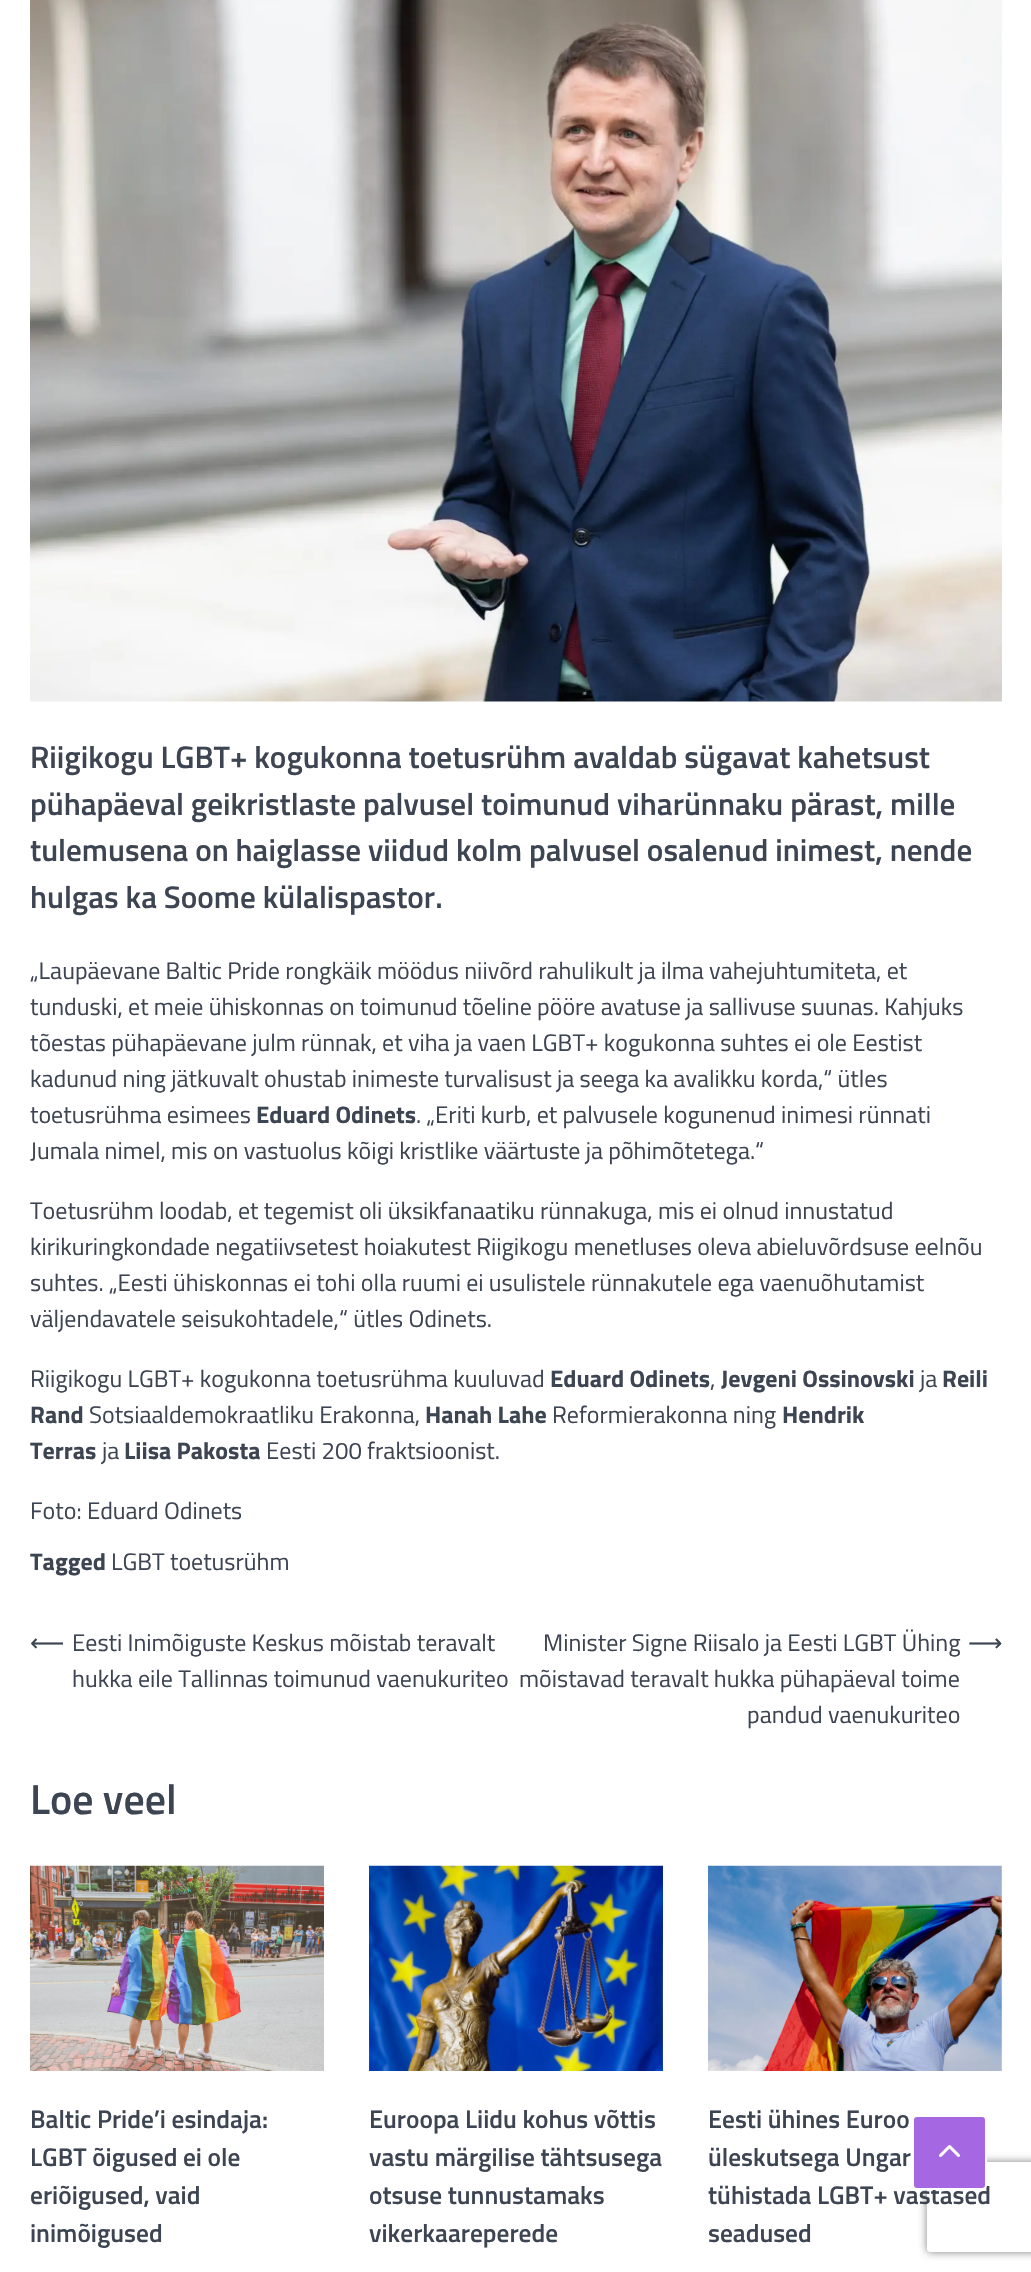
#include "include/core/SkBlurTypes.h"
#include "include/core/SkCanvas.h"
#include "include/core/SkData.h"
#include "include/core/SkFont.h"
#include "include/core/SkFontMgr.h"
#include "include/core/SkImage.h"
#include "include/core/SkMaskFilter.h"
#include "include/core/SkPaint.h"
#include "include/core/SkPathBuilder.h"
#include "include/core/SkTextBlob.h"
#include "include/effects/SkDashPathEffect.h"
#include "include/effects/SkGradientShader.h"
#include "include/utils/SkParsePath.h"

extern sk_sp<SkFontMgr> fontMgr;

void draw(SkCanvas* canvas) {
  SkPaint p;
  p.setAntiAlias(true);
  canvas->clear(SK_ColorWHITE);
  canvas->drawImageRect(SkImages::DeferredFromEncodedData(SkData::MakeFromFileName("images/1.png")), SkRect::MakeLTRB(30, 0, 1002, 702), SkSamplingOptions());
  canvas->drawImageRect(SkImages::DeferredFromEncodedData(SkData::MakeFromFileName("images/2.png")), SkRect::MakeLTRB(30, 1865, 324, 2071), SkSamplingOptions());
  canvas->drawImageRect(SkImages::DeferredFromEncodedData(SkData::MakeFromFileName("images/3.png")), SkRect::MakeLTRB(369, 1865, 663, 2071), SkSamplingOptions());
  canvas->drawImageRect(SkImages::DeferredFromEncodedData(SkData::MakeFromFileName("images/4.png")), SkRect::MakeLTRB(708, 1865, 1002, 2071), SkSamplingOptions());
  canvas->save();
  canvas->clipPath(SkPathBuilder(SkPathFillType::kEvenOdd).moveTo(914, 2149).lineTo(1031, 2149).lineTo(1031, 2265).lineTo(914, 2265).close().moveTo(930, 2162).lineTo(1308, 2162).cubicTo(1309.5f, 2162, 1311, 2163.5f, 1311, 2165).lineTo(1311, 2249).cubicTo(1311, 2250.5f, 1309.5f, 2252, 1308, 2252).lineTo(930, 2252).cubicTo(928.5f, 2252, 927, 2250.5f, 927, 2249).lineTo(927, 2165).cubicTo(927, 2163.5f, 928.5f, 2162, 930, 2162).close().detach(), true);
  p.setColor(SkColorSetRGB(128, 128, 128));
  p.setMaskFilter(SkMaskFilter::MakeBlur(kNormal_SkBlurStyle, 4));
  canvas->drawRoundRect(SkRect::MakeLTRB(927, 2162, 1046, 2252), 3, 3, p);
  p.setMaskFilter(nullptr);
  canvas->restore();
  SkFont font1(fontMgr->matchFamilyStyle("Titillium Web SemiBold", SkFontStyle(600, SkFontStyle::kNormal_Width, SkFontStyle::kUpright_Slant)), 31.2f);
  font1.setSubpixel(true);
  p.setColor(SkColorSetRGB(61, 68, 82));
  canvas->drawString("Riigikogu LGBT+ kogukonna toetusrühm avaldab sügavat kahetsust", 30, 768, font1, p);
  canvas->drawString("pühapäeval geikristlaste palvusel toimunud viharünnaku pärast, mille", 30, 815, font1, p);
  canvas->drawString("tulemusena on haiglasse viidud kolm palvusel osalenud inimest, nende", 30, 861, font1, p);
  canvas->drawString("hulgas ka Soome külalispastor.", 30, 908, font1, p);
  SkFont font2(fontMgr->matchFamilyStyle("Titillium Web", SkFontStyle::Normal()), 24);
  font2.setSubpixel(true);
  canvas->drawString("„Laupäevane Baltic Pride rongkäik möödus niivõrd rahulikult ja ilma vahejuhtumiteta, et", 30, 979, font2, p);
  canvas->drawString("tunduski, et meie ühiskonnas on toimunud tõeline pööre avatuse ja sallivuse suunas. Kahjuks", 30, 1015, font2, p);
  canvas->drawString("tõestas pühapäevane julm rünnak, et viha ja vaen LGBT+ kogukonna suhtes ei ole Eestist", 30, 1051, font2, p);
  canvas->drawString("kadunud ning jätkuvalt ohustab inimeste turvalisust ja seega ka avalikku korda,“ ütles", 30, 1087, font2, p);
  canvas->drawString("toetusrühma esimees", 30, 1123, font2, p);
  SkFont font3(fontMgr->matchFamilyStyle("Titillium Web", SkFontStyle::Bold()), 24);
  font3.setSubpixel(true);
  canvas->drawString("Eduard Odinets", 256, 1123, font3, p);
  canvas->drawString(". „Eriti kurb, et palvusele kogunenud inimesi rünnati", 416, 1123, font2, p);
  canvas->drawString("Jumala nimel, mis on vastuolus kõigi kristlike väärtuste ja põhimõtetega.“", 30, 1159, font2, p);
  canvas->drawString("Toetusrühm loodab, et tegemist oli üksikfanaatiku rünnakuga, mis ei olnud innustatud", 30, 1219, font2, p);
  canvas->drawString("kirikuringkondade negatiivsetest hoiakutest Riigikogu menetluses oleva abieluvõrdsuse eelnõu", 30, 1255, font2, p);
  canvas->drawString("suhtes. „Eesti ühiskonnas ei tohi olla ruumi ei usulistele rünnakutele ega vaenuõhutamist", 30, 1291, font2, p);
  canvas->drawString("väljendavatele seisukohtadele,“ ütles Odinets.", 30, 1327, font2, p);
  canvas->drawString("Riigikogu LGBT+ kogukonna toetusrühma kuuluvad", 30, 1387, font2, p);
  canvas->drawString("Eduard Odinets", 550, 1387, font3, p);
  canvas->drawString(",", 710, 1387, font2, p);
  canvas->drawString("Jevgeni Ossinovski", 721, 1387, font3, p);
  canvas->drawString("ja", 920, 1387, font2, p);
  canvas->drawString("Reili", 942, 1387, font3, p);
  canvas->drawString("Rand", 30, 1423, font3, p);
  canvas->drawString("Sotsiaaldemokraatliku Erakonna,", 89, 1423, font2, p);
  canvas->drawString("Hanah Lahe", 425, 1423, font3, p);
  canvas->drawString("Reformierakonna ning", 552, 1423, font2, p);
  canvas->drawString("Hendrik", 782, 1423, font3, p);
  canvas->drawString("Terras", 30, 1459, font3, p);
  canvas->drawString("ja", 102, 1459, font2, p);
  canvas->drawString("Liisa Pakosta", 124, 1459, font3, p);
  canvas->drawString("Eesti 200 fraktsioonist.", 266, 1459, font2, p);
  canvas->drawString("Foto: Eduard Odinets", 30, 1519, font2, p);
  canvas->drawString("Tagged", 30, 1570, font3, p);
  canvas->drawString("LGBT toetusrühm", 111, 1570, font2, p);
  SkFont font4(fontMgr->matchFamilyStyle("DejaVu Sans", SkFontStyle::Normal()), 24);
  font4.setSubpixel(true);
  canvas->drawString("⟵", 30, 1651, font4, p);
  canvas->drawString("Eesti Inimõiguste Keskus mõistab teravalt", 72, 1651, font2, p);
  canvas->drawString("hukka eile Tallinnas toimunud vaenukuriteo", 72, 1687, font2, p);
  canvas->drawString("Minister Signe Riisalo ja Eesti LGBT Ühing", 543, 1651, font2, p);
  canvas->drawString("mõistavad teravalt hukka pühapäeval toime", 519, 1687, font2, p);
  canvas->drawString("pandud vaenukuriteo", 747, 1723, font2, p);
  canvas->drawString("⟶", 968, 1651, font4, p);
  SkFont font5(fontMgr->matchFamilyStyle("Titillium Web SemiBold", SkFontStyle(600, SkFontStyle::kNormal_Width, SkFontStyle::kUpright_Slant)), 42);
  font5.setSubpixel(true);
  canvas->drawString("Loe veel", 30, 1814, font5, p);
  SkFont font6(fontMgr->matchFamilyStyle("Titillium Web SemiBold", SkFontStyle(600, SkFontStyle::kNormal_Width, SkFontStyle::kUpright_Slant)), 25.4f);
  font6.setSubpixel(true);
  canvas->drawString("Baltic Pride’i esindaja:", 30, 2128, font6, p);
  canvas->drawString("LGBT õigused ei ole", 30, 2166, font6, p);
  canvas->drawString("eriõigused, vaid", 30, 2204, font6, p);
  canvas->drawString("inimõigused", 30, 2242, font6, p);
  canvas->drawString("Euroopa Liidu kohus võttis", 369, 2128, font6, p);
  canvas->drawString("vastu märgilise tähtsusega", 369, 2166, font6, p);
  canvas->drawString("otsuse tunnustamaks", 369, 2204, font6, p);
  canvas->drawString("vikerkaareperede", 369, 2242, font6, p);
  canvas->drawString("Eesti ühines Euroo", 708, 2128, font6, p);
  canvas->drawString("üleskutsega Ungar", 708, 2166, font6, p);
  canvas->drawString("tühistada LGBT+ vastased", 708, 2204, font6, p);
  canvas->drawString("seadused", 708, 2242, font6, p);
  p.setColor(SkColorSetRGB(165, 104, 226));
  canvas->drawRoundRect(SkRect::MakeLTRB(913, 2116, 986, 2189), 4, 4, p);
  p.setStyle(SkPaint::kStroke_Style);
  p.setStrokeWidth(2);
  p.setColor(SK_ColorWHITE);
  canvas->drawRoundRect(SkRect::MakeLTRB(913, 2116, 986, 2189), 4, 4, p);
  canvas->drawImageRect(SkImages::DeferredFromEncodedData(SkData::MakeFromFileName("images/5.png")), SkRect::MakeLTRB(939, 2145, 960, 2157), SkSamplingOptions());
}
